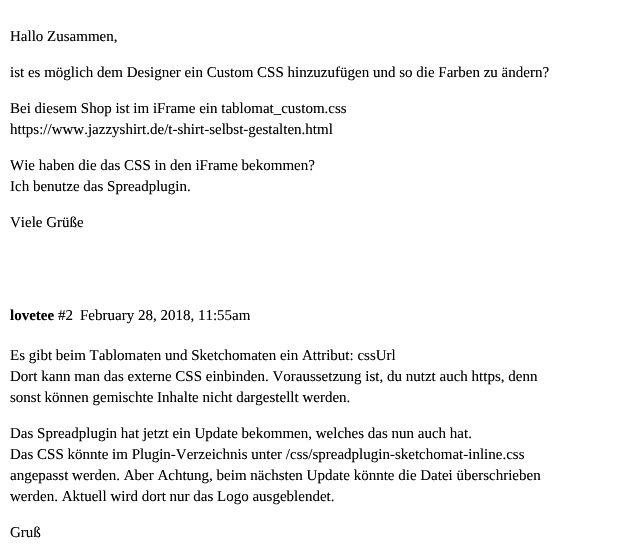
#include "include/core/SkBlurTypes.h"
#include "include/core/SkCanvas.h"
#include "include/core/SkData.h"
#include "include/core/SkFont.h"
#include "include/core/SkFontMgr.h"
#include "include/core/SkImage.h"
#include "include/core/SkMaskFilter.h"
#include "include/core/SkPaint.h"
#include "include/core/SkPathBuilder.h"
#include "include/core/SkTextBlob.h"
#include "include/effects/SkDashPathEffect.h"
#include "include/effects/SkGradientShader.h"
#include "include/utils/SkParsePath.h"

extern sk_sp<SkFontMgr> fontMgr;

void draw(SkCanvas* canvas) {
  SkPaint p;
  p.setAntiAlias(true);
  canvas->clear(SK_ColorWHITE);
  SkFont font1(fontMgr->matchFamilyStyle("Liberation Serif", SkFontStyle::Normal()), 15);
  font1.setSubpixel(true);
  p.setColor(SK_ColorBLACK);
  canvas->drawString("Hallo Zusammen,", 10, 41, font1, p);
  canvas->drawString("ist es möglich dem Designer ein Custom CSS hinzuzufügen und so die Farben zu ändern?", 10, 77, font1, p);
  canvas->drawString("Bei diesem Shop ist im iFrame ein tablomat_custom.css", 10, 113, font1, p);
  canvas->drawString("https://www.jazzyshirt.de/t-shirt-selbst-gestalten.html", 10, 134, font1, p);
  canvas->drawString("Wie haben die das CSS in den iFrame bekommen?", 10, 170, font1, p);
  canvas->drawString("Ich benutze das Spreadplugin.", 10, 191, font1, p);
  canvas->drawString("Viele Grüße", 10, 227, font1, p);
  SkFont font2(fontMgr->matchFamilyStyle("Liberation Serif", SkFontStyle::Bold()), 15);
  font2.setSubpixel(true);
  canvas->drawString("lovetee", 10, 320, font2, p);
  canvas->drawString("#2", 58, 320, font1, p);
  canvas->drawString("February 28, 2018, 11:55am", 80, 320, font1, p);
  canvas->drawString("Es gibt beim Tablomaten und Sketchomaten ein Attribut: cssUrl", 10, 360, font1, p);
  canvas->drawString("Dort kann man das externe CSS einbinden. Voraussetzung ist, du nutzt auch https, denn", 10, 381, font1, p);
  canvas->drawString("sonst können gemischte Inhalte nicht dargestellt werden.", 10, 402, font1, p);
  canvas->drawString("Das Spreadplugin hat jetzt ein Update bekommen, welches das nun auch hat.", 10, 438, font1, p);
  canvas->drawString("Das CSS könnte im Plugin-Verzeichnis unter /css/spreadplugin-sketchomat-inline.css", 10, 459, font1, p);
  canvas->drawString("angepasst werden. Aber Achtung, beim nächsten Update könnte die Datei überschrieben", 10, 480, font1, p);
  canvas->drawString("werden. Aktuell wird dort nur das Logo ausgeblendet.", 10, 501, font1, p);
  canvas->drawString("Gruß", 10, 537, font1, p);
}
